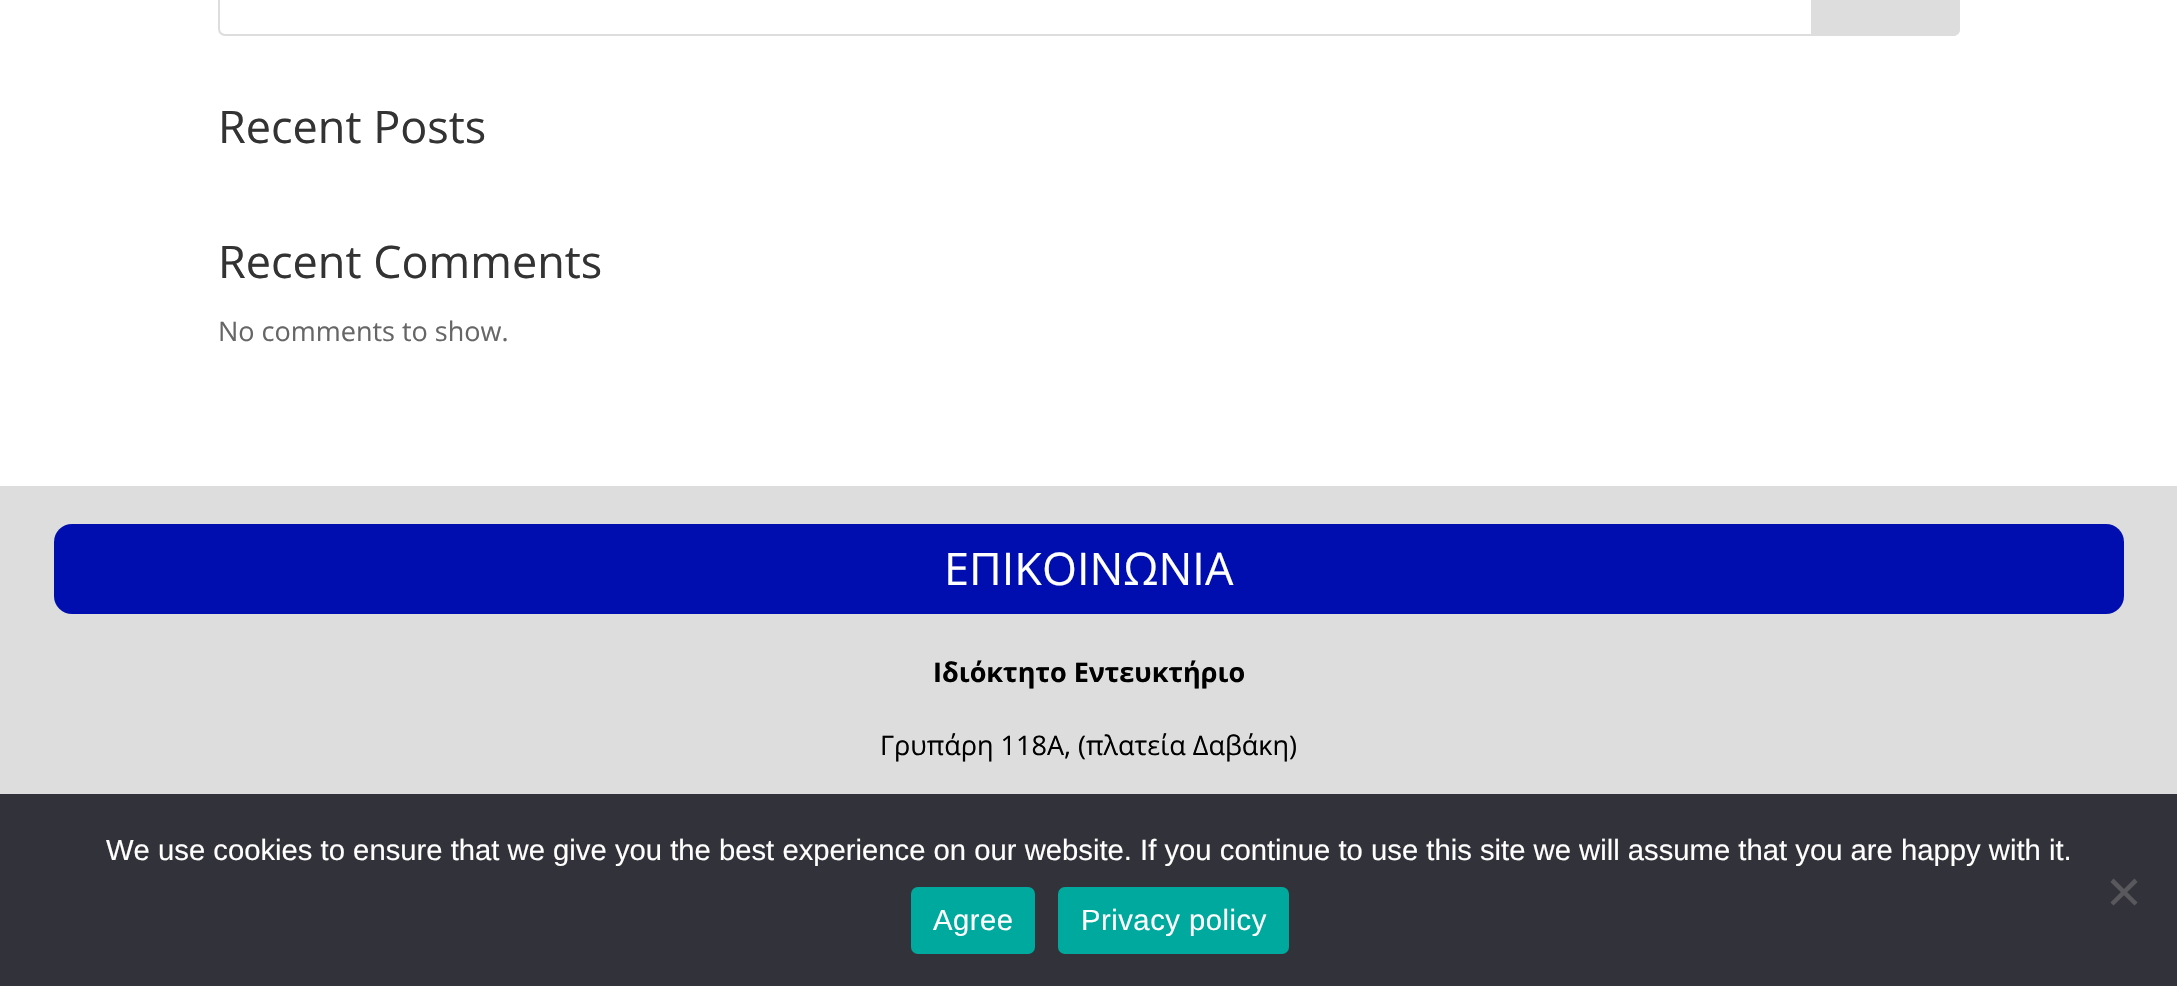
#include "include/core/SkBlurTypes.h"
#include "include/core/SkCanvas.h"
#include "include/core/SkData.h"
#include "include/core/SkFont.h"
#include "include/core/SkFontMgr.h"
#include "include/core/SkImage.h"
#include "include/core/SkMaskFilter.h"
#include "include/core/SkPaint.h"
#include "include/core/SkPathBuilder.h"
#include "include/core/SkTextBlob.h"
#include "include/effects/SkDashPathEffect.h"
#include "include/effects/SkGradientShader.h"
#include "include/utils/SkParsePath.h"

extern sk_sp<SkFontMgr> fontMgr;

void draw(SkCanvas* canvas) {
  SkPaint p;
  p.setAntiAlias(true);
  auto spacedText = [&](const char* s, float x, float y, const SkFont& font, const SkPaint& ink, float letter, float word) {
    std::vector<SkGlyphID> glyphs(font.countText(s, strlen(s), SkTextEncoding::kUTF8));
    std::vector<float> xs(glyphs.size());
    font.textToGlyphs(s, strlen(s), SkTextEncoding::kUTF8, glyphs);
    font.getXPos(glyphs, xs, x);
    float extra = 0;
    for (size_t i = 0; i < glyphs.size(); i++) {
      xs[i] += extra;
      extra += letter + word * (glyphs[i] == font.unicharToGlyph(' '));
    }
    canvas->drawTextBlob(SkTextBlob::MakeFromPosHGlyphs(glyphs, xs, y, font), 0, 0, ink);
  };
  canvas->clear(SK_ColorWHITE);
  p.setStyle(SkPaint::kStroke_Style);
  p.setStrokeWidth(2);
  p.setColor(SkColorSetRGB(221, 221, 221));
  canvas->drawRoundRect(SkRect::MakeLTRB(219, -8, 1959, 35), 6, 6, p);
  p.setStyle(SkPaint::kFill_Style);
  canvas->drawPath(SkPathBuilder().moveTo(1812, -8).lineTo(1953, -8).cubicTo(1956.5f, -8, 1959, -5.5f, 1959, -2).lineTo(1959, 29).cubicTo(1959, 32.5f, 1956.5f, 35, 1953, 35).lineTo(1812, 35).close().detach(), p);
  p.setStyle(SkPaint::kStroke_Style);
  canvas->drawPath(SkPathBuilder().moveTo(1812, -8).lineTo(1953, -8).cubicTo(1956.5f, -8, 1959, -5.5f, 1959, -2).lineTo(1959, 29).cubicTo(1959, 32.5f, 1956.5f, 35, 1953, 35).lineTo(1812, 35).close().detach(), p);
  p.setStyle(SkPaint::kFill_Style);
  canvas->drawRect(SkRect::MakeLTRB(0, 486, 2177, 794), p);
  p.setColor(SkColorSetRGB(0, 14, 175));
  canvas->drawRoundRect(SkRect::MakeLTRB(54, 524, 2124, 614), 18, 18, p);
  p.setColor(SkColorSetRGB(50, 50, 58));
  canvas->drawRect(SkRect::MakeLTRB(0, 794, 2177, 986), p);
  p.setColor(SkColorSetRGB(89, 89, 93));
  canvas->drawPath(SkPathBuilder().moveTo(2134.5f, 878.5f).lineTo(2137.5f, 882).lineTo(2113.5f, 905.5f).lineTo(2110.5f, 902.5f).close().detach(), p);
  canvas->drawPath(SkPathBuilder().moveTo(2110.5f, 882).lineTo(2113.5f, 878.5f).lineTo(2137.5f, 902.5f).lineTo(2134.5f, 905.5f).close().detach(), p);
  p.setColor(SkColorSetRGB(0, 169, 157));
  canvas->drawRoundRect(SkRect::MakeLTRB(911, 887, 1035, 954), 7, 7, p);
  canvas->drawRoundRect(SkRect::MakeLTRB(1058, 887, 1289, 954), 7, 7, p);
  SkFont font1(fontMgr->matchFamilyStyle("Open Sans", SkFontStyle::Normal()), 45);
  font1.setSubpixel(true);
  p.setColor(SkColorSetRGB(51, 51, 51));
  canvas->drawString("Recent Posts", 218, 143, font1, p);
  canvas->drawString("Recent Comments", 218, 278, font1, p);
  SkFont font2(fontMgr->matchFamilyStyle("Open Sans", SkFontStyle::Normal()), 27);
  font2.setSubpixel(true);
  p.setColor(SkColorSetRGB(102, 102, 102));
  canvas->drawString("No comments to show.", 218, 341, font2, p);
  p.setColor(SK_ColorWHITE);
  canvas->drawString("ΕΠΙΚΟΙΝΩΝΙΑ", 944, 585, font1, p);
  SkFont font3(fontMgr->matchFamilyStyle("Open Sans", SkFontStyle::Bold()), 27);
  font3.setSubpixel(true);
  p.setColor(SK_ColorBLACK);
  canvas->drawString("Ιδιόκτητο Εντευκτήριο", 933, 682, font3, p);
  canvas->drawString("Γρυπάρη 118Α, (πλατεία Δαβάκη)", 880, 755, font2, p);
  SkFont font4(fontMgr->matchFamilyStyle("Liberation Sans", SkFontStyle::Normal()), 29.25f);
  font4.setSubpixel(true);
  p.setColor(SK_ColorWHITE);
  canvas->drawString("We use cookies to ensure that we give you the best experience on our website. If you continue to use this site we will assume that you are happy with it.", 106, 860, font4, p);
  spacedText("Agree", 933, 930, font4, p, 0.5f, 0);
  spacedText("Privacy policy", 1081, 930, font4, p, 0.5f, 0);
}
